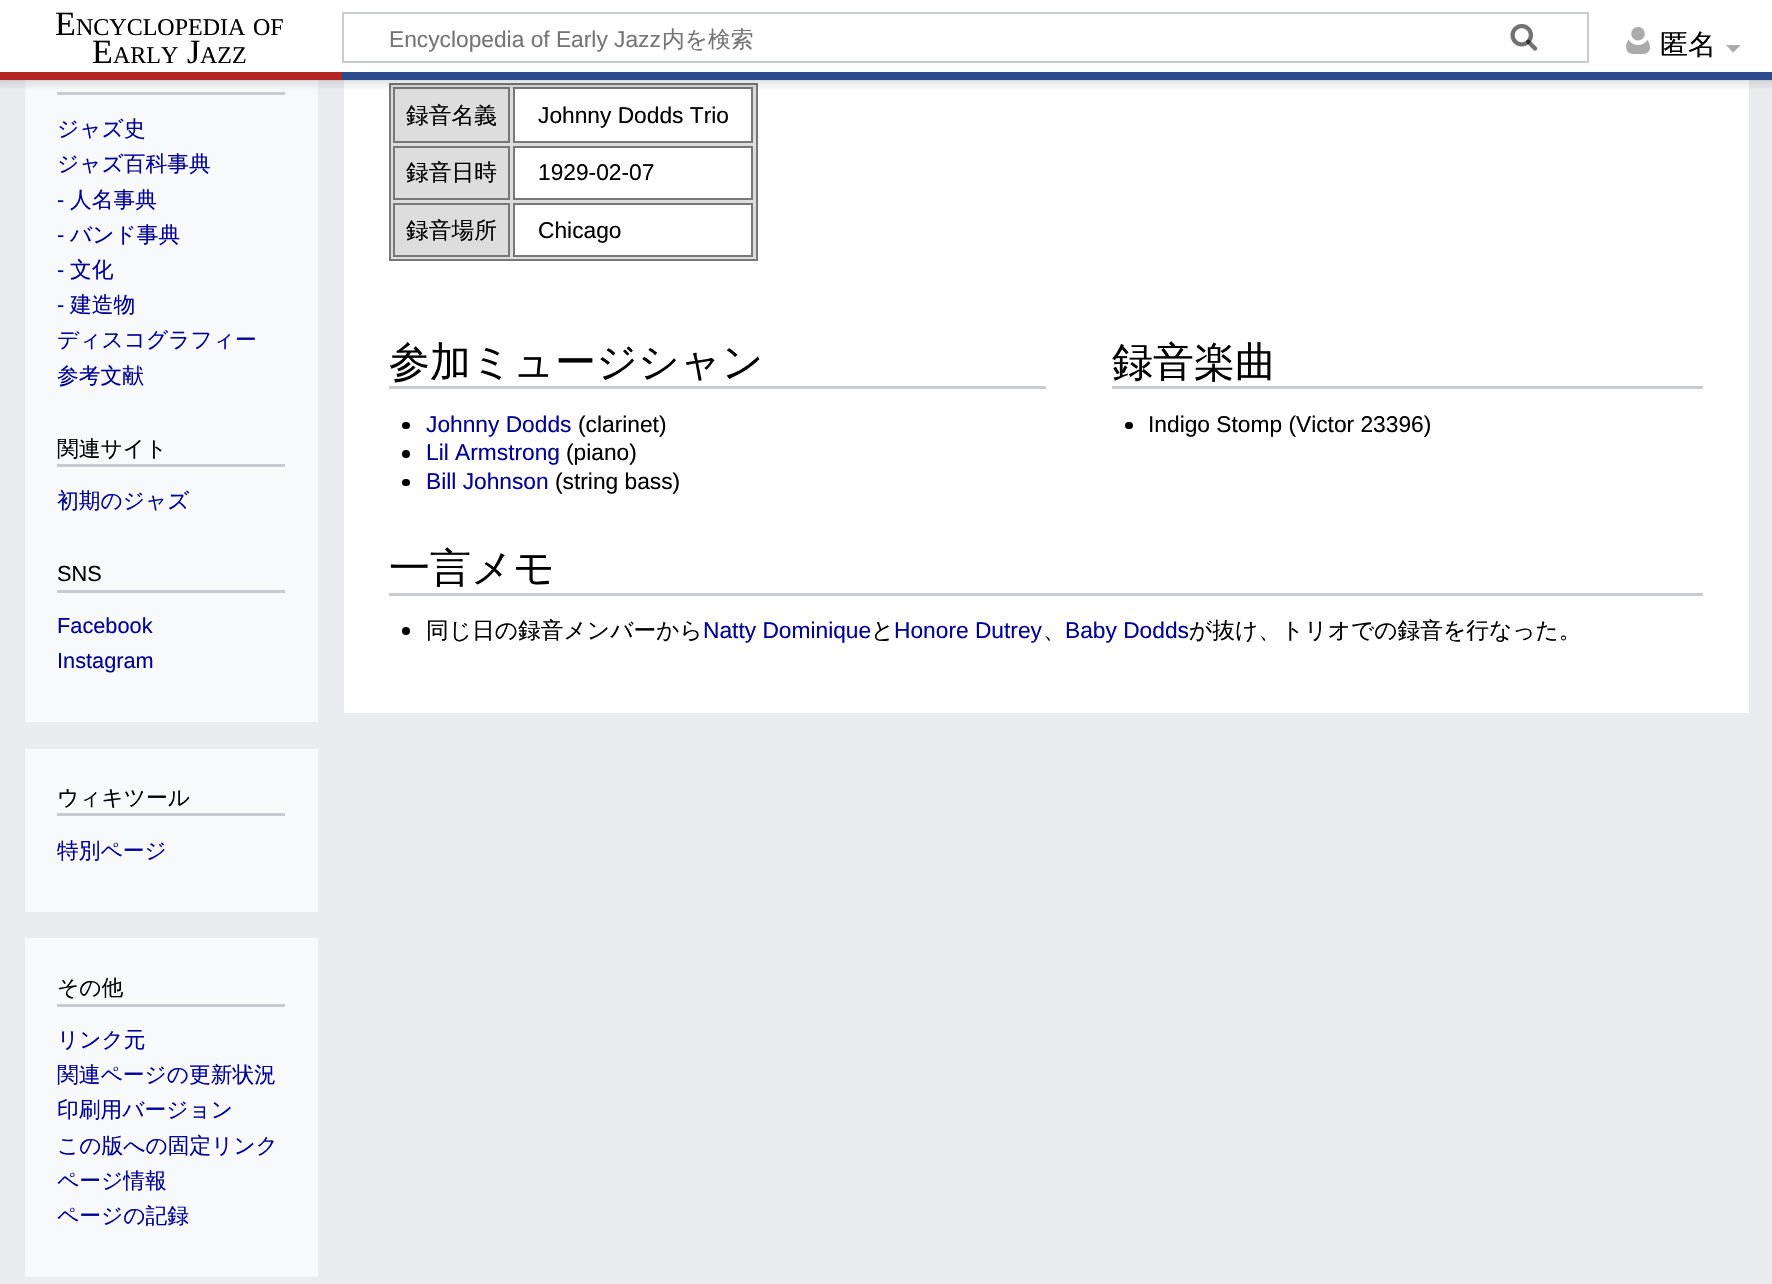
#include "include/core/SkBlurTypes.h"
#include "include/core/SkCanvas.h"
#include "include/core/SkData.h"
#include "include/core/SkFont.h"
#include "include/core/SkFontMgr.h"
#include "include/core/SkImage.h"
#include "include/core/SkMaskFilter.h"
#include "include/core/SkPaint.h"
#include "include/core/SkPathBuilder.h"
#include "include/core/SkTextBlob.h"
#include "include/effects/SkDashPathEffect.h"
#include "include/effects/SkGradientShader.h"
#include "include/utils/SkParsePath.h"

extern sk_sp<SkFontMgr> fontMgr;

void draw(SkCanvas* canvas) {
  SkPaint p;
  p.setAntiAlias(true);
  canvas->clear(SkColorSetRGB(234, 236, 240));
  p.setColor(SkColorSetRGB(248, 249, 250));
  canvas->drawRect(SkRect::MakeLTRB(25, 80, 318, 722), p);
  p.setColor(SK_ColorWHITE);
  canvas->drawRect(SkRect::MakeLTRB(344, 80, 1749, 713), p);
  p.setColor(SkColorSetRGB(221, 221, 221));
  canvas->drawRect(SkRect::MakeLTRB(390, 84, 757, 260), p);
  p.setStyle(SkPaint::kStroke_Style);
  p.setStrokeWidth(2);
  p.setColor(SkColorSetRGB(119, 119, 119));
  canvas->drawRect(SkRect::MakeLTRB(390, 84, 757, 260), p);
  p.setStyle(SkPaint::kFill_Style);
  p.setColor(SkColorSetARGB(51, 0, 0, 0));
  p.setMaskFilter(SkMaskFilter::MakeBlur(kNormal_SkBlurStyle, 1.5f));
  canvas->drawRect(SkRect::MakeLTRB(0, 72, 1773, 80), p);
  p.setMaskFilter(nullptr);
  p.setColor(SkColorSetRGB(200, 204, 209));
  canvas->drawRect(SkRect::MakeLTRB(57, 92, 285, 95), p);
  p.setStyle(SkPaint::kStroke_Style);
  p.setColor(SkColorSetRGB(119, 119, 119));
  canvas->drawRect(SkRect::MakeLTRB(394, 88, 509, 142), p);
  p.setStyle(SkPaint::kFill_Style);
  p.setColor(SK_ColorWHITE);
  canvas->drawRect(SkRect::MakeLTRB(514, 88, 752, 142), p);
  p.setStyle(SkPaint::kStroke_Style);
  p.setColor(SkColorSetRGB(119, 119, 119));
  canvas->drawRect(SkRect::MakeLTRB(514, 88, 752, 142), p);
  p.setStyle(SkPaint::kFill_Style);
  p.setColor(SkColorSetARGB(18, 0, 0, 0));
  p.setMaskFilter(SkMaskFilter::MakeBlur(kNormal_SkBlurStyle, 2));
  canvas->drawRect(SkRect::MakeLTRB(-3, 74, 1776, 87), p);
  p.setMaskFilter(nullptr);
  p.setColor(SK_ColorWHITE);
  canvas->drawRect(SkRect::MakeLTRB(0, 0, 1772, 72), p);
  p.setStyle(SkPaint::kStroke_Style);
  p.setColor(SkColorSetRGB(200, 204, 209));
  canvas->drawRect(SkRect::MakeLTRB(343, 13, 1588, 62), p);
  canvas->drawImageRect(SkImages::DeferredFromEncodedData(SkData::MakeFromFileName("images/1.png")), SkRect::MakeLTRB(1510, 24, 1538, 51), SkSamplingOptions());
  canvas->drawImageRect(SkImages::DeferredFromEncodedData(SkData::MakeFromFileName("images/2.png")), SkRect::MakeLTRB(1510, 24, 1538, 51), SkSamplingOptions());
  canvas->drawImageRect(SkImages::DeferredFromEncodedData(SkData::MakeFromFileName("images/3.png")), SkRect::MakeLTRB(1626, 27, 1650, 54), SkSamplingOptions());
  p.setStyle(SkPaint::kFill_Style);
  p.setColor(SkColorSetRGB(171, 171, 171));
  canvas->drawPath(SkPathBuilder().moveTo(1741, 45).lineTo(1733, 52.5f).lineTo(1726, 45).close().detach(), p);
  p.setColor(SkColorSetRGB(179, 36, 36));
  canvas->drawRect(SkRect::MakeLTRB(0, 72, 342, 80), p);
  p.setColor(SkColorSetRGB(42, 75, 141));
  canvas->drawRect(SkRect::MakeLTRB(342, 72, 1772, 80), p);
  p.setColor(SkColorSetRGB(200, 204, 209));
  canvas->drawRect(SkRect::MakeLTRB(57, 464, 285, 467), p);
  canvas->drawRect(SkRect::MakeLTRB(57, 590, 285, 593), p);
  p.setColor(SkColorSetRGB(248, 249, 250));
  canvas->drawRect(SkRect::MakeLTRB(25, 749, 318, 912), p);
  p.setColor(SkColorSetRGB(200, 204, 209));
  canvas->drawRect(SkRect::MakeLTRB(57, 813, 285, 816), p);
  p.setStyle(SkPaint::kStroke_Style);
  p.setColor(SkColorSetRGB(119, 119, 119));
  canvas->drawRect(SkRect::MakeLTRB(394, 147, 509, 199), p);
  p.setStyle(SkPaint::kFill_Style);
  p.setColor(SK_ColorWHITE);
  canvas->drawRect(SkRect::MakeLTRB(514, 147, 752, 199), p);
  p.setStyle(SkPaint::kStroke_Style);
  p.setColor(SkColorSetRGB(119, 119, 119));
  canvas->drawRect(SkRect::MakeLTRB(514, 147, 752, 199), p);
  canvas->drawRect(SkRect::MakeLTRB(394, 204, 509, 256), p);
  p.setStyle(SkPaint::kFill_Style);
  p.setColor(SK_ColorWHITE);
  canvas->drawRect(SkRect::MakeLTRB(514, 204, 752, 256), p);
  p.setStyle(SkPaint::kStroke_Style);
  p.setColor(SkColorSetRGB(119, 119, 119));
  canvas->drawRect(SkRect::MakeLTRB(514, 204, 752, 256), p);
  p.setStyle(SkPaint::kFill_Style);
  p.setColor(SkColorSetRGB(200, 204, 209));
  canvas->drawRect(SkRect::MakeLTRB(389, 386, 1046, 389), p);
  p.setColor(SK_ColorBLACK);
  canvas->drawRoundRect(SkRect::MakeLTRB(402, 422, 410, 429), 3.5f, 3.5f, p);
  canvas->drawCircle(406, 454, 4, p);
  canvas->drawRoundRect(SkRect::MakeLTRB(402, 479, 410, 486), 3.5f, 3.5f, p);
  p.setColor(SkColorSetRGB(200, 204, 209));
  canvas->drawRect(SkRect::MakeLTRB(1112, 386, 1703, 389), p);
  p.setColor(SK_ColorBLACK);
  canvas->drawRoundRect(SkRect::MakeLTRB(1125, 422, 1133, 429), 3.5f, 3.5f, p);
  p.setColor(SkColorSetRGB(200, 204, 209));
  canvas->drawRect(SkRect::MakeLTRB(389, 593, 1703, 596), p);
  p.setColor(SK_ColorBLACK);
  canvas->drawCircle(406, 631, 4, p);
  p.setColor(SkColorSetRGB(248, 249, 250));
  canvas->drawRect(SkRect::MakeLTRB(25, 938, 318, 1277), p);
  p.setColor(SkColorSetRGB(200, 204, 209));
  canvas->drawRect(SkRect::MakeLTRB(57, 1004, 285, 1007), p);
  SkFont font1(fontMgr->matchFamilyStyle("Liberation Serif", SkFontStyle::Normal()), 34);
  font1.setSubpixel(true);
  p.setColor(SK_ColorBLACK);
  canvas->drawString("E", 55, 35, font1, p);
  SkFont font2(fontMgr->matchFamilyStyle("Liberation Serif", SkFontStyle::Normal()), 24);
  font2.setSubpixel(true);
  canvas->drawString("NCYCLOPEDIA", 76, 35, font2, p);
  canvas->drawString("OF", 253, 35, font2, p);
  canvas->drawString("E", 92, 63, font1, p);
  canvas->drawString("ARLY", 113, 63, font2, p);
  canvas->drawString("J", 187, 63, font1, p);
  canvas->drawString("AZZ", 200, 63, font2, p);
  SkFont font3(fontMgr->matchFamilyStyle("Liberation Sans", SkFontStyle::Normal()), 22.75f);
  font3.setSubpixel(true);
  p.setColor(SkColorSetRGB(117, 117, 117));
  canvas->drawString("Encyclopedia of Early Jazz", 389, 47, font3, p);
  SkFont font4(fontMgr->matchFamilyStyle("WenQuanYi Zen Hei", SkFontStyle(500, SkFontStyle::kNormal_Width, SkFontStyle::kUpright_Slant)), 22.75f);
  font4.setSubpixel(true);
  canvas->drawString("内を検索", 662, 47, font4, p);
  SkFont font5(fontMgr->matchFamilyStyle("WenQuanYi Zen Hei", SkFontStyle(500, SkFontStyle::kNormal_Width, SkFontStyle::kUpright_Slant)), 28);
  font5.setSubpixel(true);
  p.setColor(SK_ColorBLACK);
  canvas->drawString("匿名", 1660, 54, font5, p);
  SkFont font6(fontMgr->matchFamilyStyle("WenQuanYi Zen Hei", SkFontStyle(500, SkFontStyle::kNormal_Width, SkFontStyle::kUpright_Slant)), 21.75f);
  font6.setSubpixel(true);
  p.setColor(SkColorSetRGB(0, 0, 153));
  canvas->drawString("ジャズ史", 57, 136, font6, p);
  canvas->drawString("ジャズ百科事典", 57, 171, font6, p);
  SkFont font7(fontMgr->matchFamilyStyle("Liberation Sans", SkFontStyle::Normal()), 21.75f);
  font7.setSubpixel(true);
  canvas->drawString("-", 57, 207, font7, p);
  canvas->drawString("人名事典", 70, 207, font6, p);
  canvas->drawString("-", 57, 242, font7, p);
  canvas->drawString("バンド事典", 70, 242, font6, p);
  canvas->drawString("-", 57, 277, font7, p);
  canvas->drawString("文化", 70, 277, font6, p);
  canvas->drawString("-", 57, 312, font7, p);
  canvas->drawString("建造物", 70, 312, font6, p);
  canvas->drawString("ディスコグラフィー", 57, 347, font6, p);
  canvas->drawString("参考文献", 57, 383, font6, p);
  p.setColor(SK_ColorBLACK);
  canvas->drawString("関連サイト", 57, 456, font6, p);
  p.setColor(SkColorSetRGB(0, 0, 153));
  canvas->drawString("初期のジャズ", 57, 508, font6, p);
  p.setColor(SK_ColorBLACK);
  canvas->drawString("SNS", 57, 581, font7, p);
  p.setColor(SkColorSetRGB(0, 0, 153));
  canvas->drawString("Facebook", 57, 633, font7, p);
  canvas->drawString("Instagram", 57, 668, font7, p);
  p.setColor(SK_ColorBLACK);
  canvas->drawString("ウィキツール", 57, 805, font6, p);
  p.setColor(SkColorSetRGB(0, 0, 153));
  canvas->drawString("特別ページ", 57, 858, font6, p);
  p.setColor(SK_ColorBLACK);
  canvas->drawString("録音名義", 406, 123, font4, p);
  canvas->drawString("Johnny Dodds Trio", 538, 123, font3, p);
  canvas->drawString("録音日時", 406, 180, font4, p);
  canvas->drawString("1929-02-07", 538, 180, font3, p);
  canvas->drawString("録音場所", 406, 238, font4, p);
  canvas->drawString("Chicago", 538, 238, font3, p);
  SkFont font8(fontMgr->matchFamilyStyle("WenQuanYi Zen Hei", SkFontStyle(500, SkFontStyle::kNormal_Width, SkFontStyle::kUpright_Slant)), 41);
  font8.setSubpixel(true);
  canvas->drawString("参加ミュージシャン", 389, 376, font8, p);
  p.setColor(SkColorSetRGB(0, 0, 153));
  canvas->drawString("Johnny Dodds", 426, 432, font3, p);
  p.setColor(SK_ColorBLACK);
  canvas->drawString("(clarinet)", 578, 432, font3, p);
  p.setColor(SkColorSetRGB(0, 0, 153));
  canvas->drawString("Lil Armstrong", 426, 460, font3, p);
  p.setColor(SK_ColorBLACK);
  canvas->drawString("(piano)", 566, 460, font3, p);
  p.setColor(SkColorSetRGB(0, 0, 153));
  canvas->drawString("Bill Johnson", 426, 489, font3, p);
  p.setColor(SK_ColorBLACK);
  canvas->drawString("(string bass)", 555, 489, font3, p);
  canvas->drawString("録音楽曲", 1112, 376, font8, p);
  canvas->drawString("Indigo Stomp (Victor 23396)", 1148, 432, font3, p);
  canvas->drawString("一言メモ", 389, 582, font8, p);
  canvas->drawString("同じ日の録音メンバーから", 426, 638, font4, p);
  p.setColor(SkColorSetRGB(0, 0, 153));
  canvas->drawString("Natty Dominique", 703, 638, font3, p);
  p.setColor(SK_ColorBLACK);
  canvas->drawString("と", 871, 638, font4, p);
  p.setColor(SkColorSetRGB(0, 0, 153));
  canvas->drawString("Honore Dutrey", 894, 638, font3, p);
  canvas->drawString("Baby Dodds", 1065, 638, font3, p);
  p.setColor(SK_ColorBLACK);
  canvas->drawString("が抜け、トリオでの録音を行なった。", 1189, 638, font4, p);
  canvas->drawString("、", 1043, 638, font4, p);
  canvas->drawString("その他", 57, 995, font6, p);
  p.setColor(SkColorSetRGB(0, 0, 153));
  canvas->drawString("リンク元", 57, 1047, font6, p);
  canvas->drawString("関連ページの更新状況", 57, 1082, font6, p);
  canvas->drawString("印刷用バージョン", 57, 1117, font6, p);
  canvas->drawString("この版への固定リンク", 57, 1153, font6, p);
  canvas->drawString("ページ情報", 57, 1188, font6, p);
  canvas->drawString("ページの記録", 57, 1223, font6, p);
}
